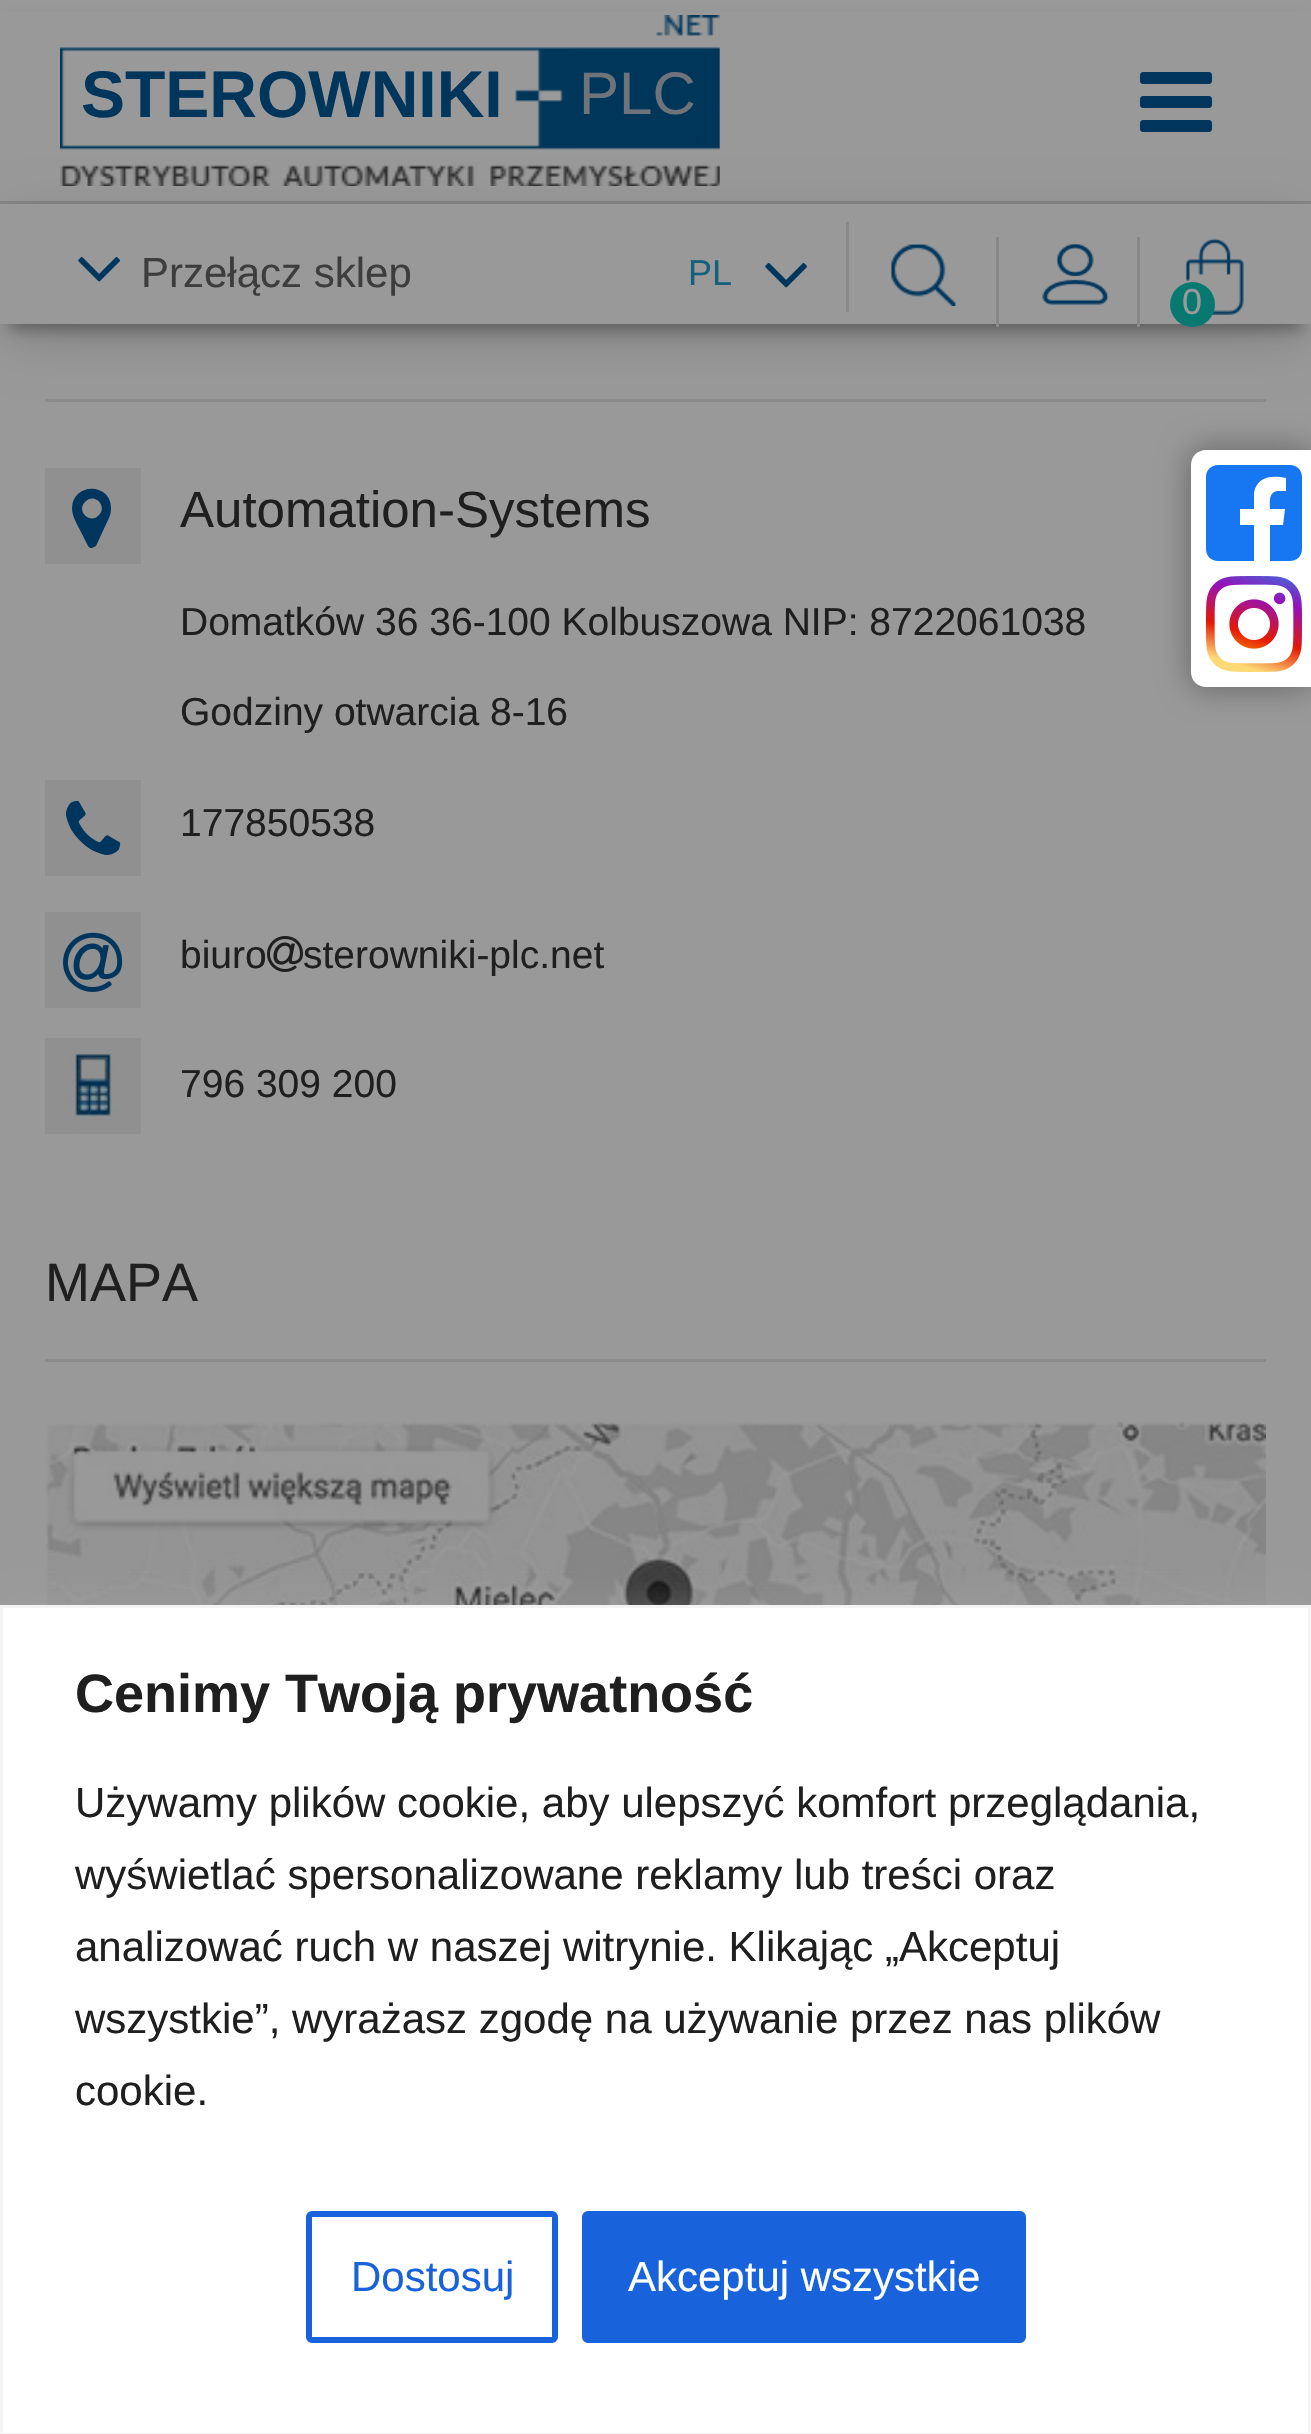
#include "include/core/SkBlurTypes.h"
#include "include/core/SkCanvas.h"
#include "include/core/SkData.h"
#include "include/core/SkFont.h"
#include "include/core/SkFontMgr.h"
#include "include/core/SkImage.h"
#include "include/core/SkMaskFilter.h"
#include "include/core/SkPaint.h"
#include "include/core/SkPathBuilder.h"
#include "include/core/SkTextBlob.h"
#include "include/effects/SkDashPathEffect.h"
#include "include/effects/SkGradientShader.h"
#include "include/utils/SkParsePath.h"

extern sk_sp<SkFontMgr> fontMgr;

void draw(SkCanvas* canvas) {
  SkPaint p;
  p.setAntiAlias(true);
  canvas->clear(SkColorSetRGB(153, 153, 153));
  p.setColor(SkColorSetARGB(77, 0, 0, 0));
  p.setMaskFilter(SkMaskFilter::MakeBlur(kNormal_SkBlurStyle, 7.5f));
  canvas->drawRect(SkRect::MakeLTRB(9, 24, 1302, 330), p);
  p.setMaskFilter(nullptr);
  p.setColor(SkColorSetRGB(153, 153, 153));
  canvas->drawRect(SkRect::MakeLTRB(0, 12, 1311, 324), p);
  p.setColor(SkColorSetRGB(133, 133, 133));
  canvas->drawRect(SkRect::MakeLTRB(0, 201, 1311, 204), p);
  canvas->drawImageRect(SkImages::DeferredFromEncodedData(SkData::MakeFromFileName("images/1.png")), SkRect::MakeLTRB(60, 15, 720, 186), SkSamplingOptions());
  p.setColor(SkColorSetRGB(139, 139, 139));
  canvas->drawRect(SkRect::MakeLTRB(45, 399, 1266, 402), p);
  canvas->save();
  canvas->clipPath(SkPathBuilder(SkPathFillType::kEvenOdd).moveTo(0, 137).lineTo(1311, 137).lineTo(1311, 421).lineTo(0, 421).close().moveTo(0, 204).lineTo(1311, 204).lineTo(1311, 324).lineTo(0, 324).close().detach(), true);
  p.setColor(SkColorSetARGB(51, 0, 0, 0));
  p.setMaskFilter(SkMaskFilter::MakeBlur(kNormal_SkBlurStyle, 30));
  canvas->drawRect(SkRect::MakeLTRB(9, 228, 1302, 330), p);
  p.setMaskFilter(nullptr);
  canvas->restore();
  canvas->drawImageRect(SkImages::DeferredFromEncodedData(SkData::MakeFromFileName("images/2.png")), SkRect::MakeLTRB(78, 257, 120, 282), SkSamplingOptions());
  canvas->drawImageRect(SkImages::DeferredFromEncodedData(SkData::MakeFromFileName("images/2.png")), SkRect::MakeLTRB(765, 263, 807, 288), SkSamplingOptions());
  p.setColor(SkColorSetRGB(136, 136, 136));
  canvas->drawRect(SkRect::MakeLTRB(846, 222, 849, 312), p);
  canvas->drawImageRect(SkImages::DeferredFromEncodedData(SkData::MakeFromFileName("images/3.png")), SkRect::MakeLTRB(890, 243, 956, 306), SkSamplingOptions());
  canvas->drawRect(SkRect::MakeLTRB(996, 237, 999, 327), p);
  canvas->drawImageRect(SkImages::DeferredFromEncodedData(SkData::MakeFromFileName("images/4.png")), SkRect::MakeLTRB(1042, 243, 1109, 305), SkSamplingOptions());
  canvas->drawRect(SkRect::MakeLTRB(1137, 237, 1140, 327), p);
  canvas->drawImageRect(SkImages::DeferredFromEncodedData(SkData::MakeFromFileName("images/5.png")), SkRect::MakeLTRB(1185, 238, 1244, 315), SkSamplingOptions());
  p.setColor(SkColorSetRGB(8, 121, 113));
  canvas->drawCircle(1192.5f, 304.5f, 22.5f, p);
  canvas->drawImageRect(SkImages::DeferredFromEncodedData(SkData::MakeFromFileName("images/6.png")), SkRect::MakeLTRB(1140, 72, 1212, 132), SkSamplingOptions());
  p.setColor(SkColorSetRGB(144, 144, 144));
  canvas->drawRect(SkRect::MakeLTRB(45, 468, 141, 564), p);
  p.setColor(SkColorSetRGB(0, 54, 93));
  canvas->drawPath(SkPathBuilder().moveTo(99, 515).cubicTo(108, 506, 94, 492, 85, 502).cubicTo(76, 511, 90, 525, 99, 515).close().moveTo(111, 508).cubicTo(111, 513, 110, 516, 108, 520).lineTo(96, 546).lineTo(92, 548).cubicTo(88, 549, 87, 543, 85, 540).lineTo(80, 530).cubicTo(77, 524, 72, 516, 72, 508).cubicTo(73, 482, 111, 483, 111, 508).close().detach(), p);
  p.setColor(SkColorSetRGB(144, 144, 144));
  canvas->drawRect(SkRect::MakeLTRB(45, 780, 141, 876), p);
  canvas->drawImageRect(SkImages::DeferredFromEncodedData(SkData::MakeFromFileName("images/7.png")), SkRect::MakeLTRB(66, 800, 121, 855), SkSamplingOptions());
  canvas->drawRect(SkRect::MakeLTRB(45, 912, 141, 1008), p);
  canvas->drawImageRect(SkImages::DeferredFromEncodedData(SkData::MakeFromFileName("images/8.png")), SkRect::MakeLTRB(63, 932, 123, 992), SkSamplingOptions());
  canvas->drawImageRect(SkImages::DeferredFromEncodedData(SkData::MakeFromFileName("images/9.png")), SkRect::MakeLTRB(267, 936, 303, 972), SkSamplingOptions());
  canvas->drawImageRect(SkImages::DeferredFromEncodedData(SkData::MakeFromFileName("images/10.png")), SkRect::MakeLTRB(45, 1038, 141, 1134), SkSamplingOptions());
  p.setColor(SkColorSetRGB(139, 139, 139));
  canvas->drawRect(SkRect::MakeLTRB(45, 1359, 1266, 1362), p);
  canvas->drawImageRect(SkImages::DeferredFromEncodedData(SkData::MakeFromFileName("images/11.png")), SkRect::MakeLTRB(45, 1422, 1266, 1605), SkSamplingOptions());
  p.setColor(SkColorSetARGB(77, 0, 0, 0));
  p.setMaskFilter(SkMaskFilter::MakeBlur(kNormal_SkBlurStyle, 15));
  canvas->drawRoundRect(SkRect::MakeLTRB(1188, 447, 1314, 690), 18, 18, p);
  p.setMaskFilter(nullptr);
  p.setColor(SK_ColorWHITE);
  canvas->drawPath(SkPathBuilder().moveTo(1206, 450).lineTo(1311, 450).lineTo(1311, 687).lineTo(1206, 687).cubicTo(1197.5f, 687, 1191, 680.5f, 1191, 672).lineTo(1191, 465).cubicTo(1191, 456.5f, 1197.5f, 450, 1206, 450).close().detach(), p);
  p.setColor(SkColorSetRGB(23, 119, 242));
  canvas->drawPath(SkPathBuilder(SkPathFillType::kEvenOdd).moveTo(1290, 465).cubicTo(1297, 465, 1302, 470, 1302, 477).lineTo(1302, 549).cubicTo(1302, 556, 1297, 561, 1290, 561).lineTo(1270, 561).lineTo(1270, 525).lineTo(1283, 525).lineTo(1285, 509).lineTo(1270, 509).cubicTo(1270, 503, 1268, 493, 1277, 491).lineTo(1286, 491).lineTo(1286, 478).cubicTo(1272, 475, 1257, 476, 1254, 493).lineTo(1254, 509).lineTo(1240, 509).lineTo(1240, 525).lineTo(1254, 525).lineTo(1254, 561).lineTo(1218, 561).cubicTo(1211, 561, 1206, 556, 1206, 549).lineTo(1206, 477).cubicTo(1206, 470, 1211, 465, 1218, 465).close().detach(), p);
  canvas->drawImageRect(SkImages::DeferredFromEncodedData(SkData::MakeFromFileName("images/12.png")), SkRect::MakeLTRB(1206, 576, 1302, 672), SkSamplingOptions());
  p.setColor(SkColorSetARGB(77, 172, 171, 171));
  p.setMaskFilter(SkMaskFilter::MakeBlur(kNormal_SkBlurStyle, 15));
  canvas->drawRect(SkRect::MakeLTRB(0, 1602, 1311, 2433), p);
  p.setMaskFilter(nullptr);
  p.setColor(SK_ColorWHITE);
  canvas->drawRect(SkRect::MakeLTRB(1.5f, 1606.5f, 1309.5f, 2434.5f), p);
  p.setStyle(SkPaint::kStroke_Style);
  p.setStrokeWidth(3);
  p.setColor(SkColorSetRGB(244, 244, 244));
  canvas->drawRect(SkRect::MakeLTRB(1.5f, 1606.5f, 1309.5f, 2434.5f), p);
  p.setStrokeWidth(6);
  p.setColor(SkColorSetRGB(24, 99, 220));
  canvas->drawRoundRect(SkRect::MakeLTRB(309, 2214, 555, 2340), 3, 3, p);
  p.setStyle(SkPaint::kFill_Style);
  canvas->drawRoundRect(SkRect::MakeLTRB(585, 2214, 1023, 2340), 3, 3, p);
  p.setStyle(SkPaint::kStroke_Style);
  canvas->drawRoundRect(SkRect::MakeLTRB(585, 2214, 1023, 2340), 3, 3, p);
  SkFont font1(fontMgr->matchFamilyStyle("Liberation Sans", SkFontStyle::Bold()), 66);
  font1.setSubpixel(true);
  p.setStyle(SkPaint::kFill_Style);
  p.setColor(SkColorSetRGB(0, 54, 91));
  canvas->drawString("STEROWNIKI", 81, 117, font1, p);
  SkFont font2(fontMgr->matchFamilyStyle("Liberation Sans", SkFontStyle::Normal()), 60);
  font2.setSubpixel(true);
  p.setColor(SkColorSetRGB(110, 116, 122));
  canvas->drawString("PLC", 579, 114, font2, p);
  SkFont font3(fontMgr->matchFamilyStyle("Liberation Sans", SkFontStyle::Normal()), 42);
  font3.setSubpixel(true);
  p.setColor(SkColorSetRGB(61, 61, 61));
  canvas->drawString("Przełącz sklep", 141, 287, font3, p);
  SkFont font4(fontMgr->matchFamilyStyle("Liberation Sans", SkFontStyle::Normal()), 36);
  font4.setSubpixel(true);
  p.setColor(SkColorSetRGB(21, 97, 125));
  canvas->drawString("PL", 688, 285, font4, p);
  p.setColor(SkColorSetRGB(153, 153, 153));
  canvas->drawString("0", 1182, 314, font4, p);
  SkFont font5(fontMgr->matchFamilyStyle("Liberation Sans", SkFontStyle::Normal()), 51);
  font5.setSubpixel(true);
  p.setColor(SkColorSetRGB(31, 31, 31));
  canvas->drawString("Automation-Systems", 180, 527, font5, p);
  SkFont font6(fontMgr->matchFamilyStyle("Liberation Sans", SkFontStyle::Normal()), 39);
  font6.setSubpixel(true);
  canvas->drawString("Domatków 36 36-100 Kolbuszowa NIP: 8722061038", 180, 635, font6, p);
  canvas->drawString("Godziny otwarcia 8-16", 180, 725, font6, p);
  canvas->drawString("177850538", 180, 836, font6, p);
  canvas->drawString("biuro", 180, 968, font6, p);
  canvas->drawString("sterowniki-plc.net", 303, 968, font6, p);
  canvas->drawString("796 309 200", 180, 1097, font6, p);
  SkFont font7(fontMgr->matchFamilyStyle("Liberation Sans", SkFontStyle::Normal()), 54);
  font7.setSubpixel(true);
  canvas->drawString("MAPA", 45, 1301, font7, p);
  SkFont font8(fontMgr->matchFamilyStyle("Liberation Sans", SkFontStyle::Bold()), 54);
  font8.setSubpixel(true);
  canvas->drawString("Cenimy Twoją prywatność", 75, 1712, font8, p);
  canvas->drawString("Używamy plików cookie, aby ulepszyć komfort przeglądania,", 75, 1817, font3, p);
  canvas->drawString("wyświetlać spersonalizowane reklamy lub treści oraz", 75, 1889, font3, p);
  canvas->drawString("analizować ruch w naszej witrynie. Klikając „Akceptuj", 75, 1961, font3, p);
  canvas->drawString("wszystkie”, wyrażasz zgodę na używanie przez nas plików", 75, 2033, font3, p);
  canvas->drawString("cookie.", 75, 2105, font3, p);
  p.setColor(SkColorSetRGB(24, 99, 220));
  canvas->drawString("Dostosuj", 351, 2291, font3, p);
  p.setColor(SK_ColorWHITE);
  canvas->drawString("Akceptuj wszystkie", 628, 2291, font3, p);
}
